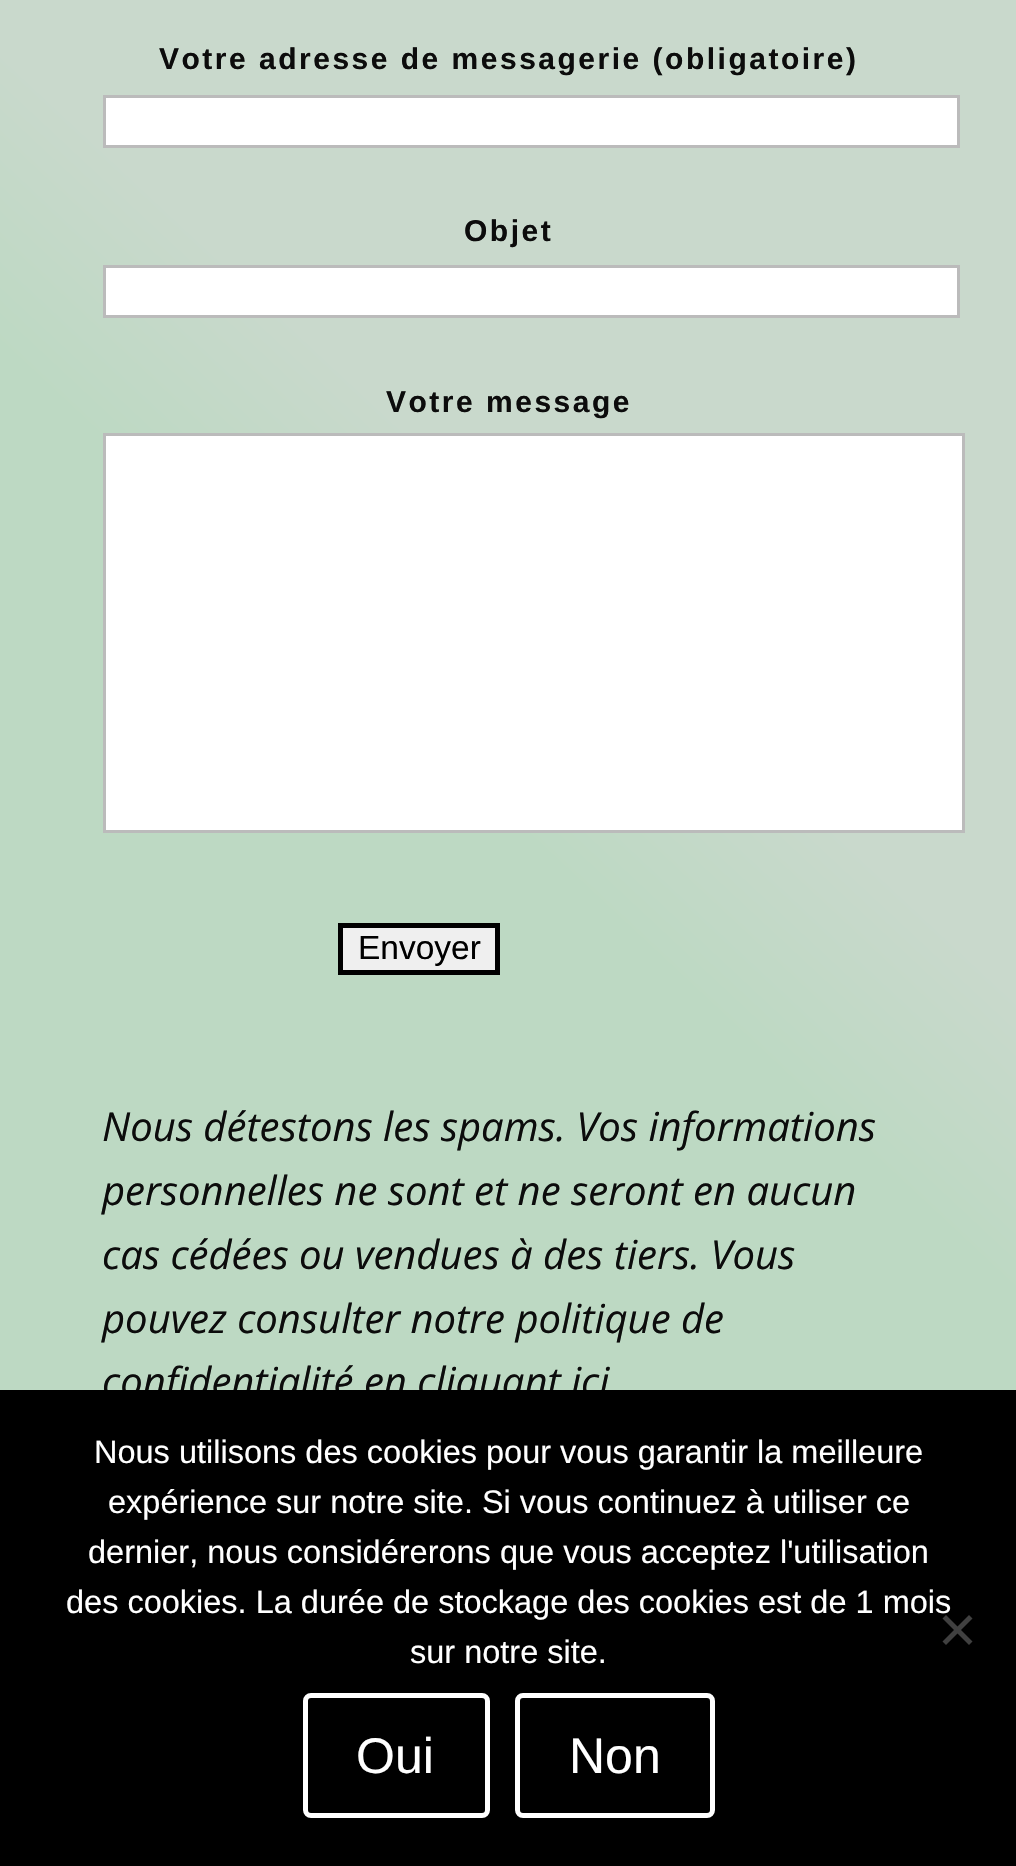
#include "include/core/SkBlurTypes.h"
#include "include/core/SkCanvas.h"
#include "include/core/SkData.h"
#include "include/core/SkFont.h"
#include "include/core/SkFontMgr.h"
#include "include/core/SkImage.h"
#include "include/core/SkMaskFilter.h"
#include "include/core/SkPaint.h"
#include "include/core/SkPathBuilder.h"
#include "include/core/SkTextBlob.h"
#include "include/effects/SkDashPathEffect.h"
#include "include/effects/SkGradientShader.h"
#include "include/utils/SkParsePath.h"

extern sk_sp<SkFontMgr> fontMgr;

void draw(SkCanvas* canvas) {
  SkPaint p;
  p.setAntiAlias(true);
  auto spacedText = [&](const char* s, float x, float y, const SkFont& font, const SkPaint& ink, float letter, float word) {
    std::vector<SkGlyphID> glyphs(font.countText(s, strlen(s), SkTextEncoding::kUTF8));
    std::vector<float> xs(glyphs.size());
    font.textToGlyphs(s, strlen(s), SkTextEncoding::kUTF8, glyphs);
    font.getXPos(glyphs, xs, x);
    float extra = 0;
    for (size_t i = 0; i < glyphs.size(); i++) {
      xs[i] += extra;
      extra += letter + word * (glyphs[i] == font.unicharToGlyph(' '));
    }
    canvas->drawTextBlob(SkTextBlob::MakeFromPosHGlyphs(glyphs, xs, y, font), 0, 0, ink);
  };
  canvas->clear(SK_ColorWHITE);
  {
    const SkColor colors[] = {SkColorSetRGB(201, 217, 204), SkColorSetRGB(189, 217, 195)};
    const float stops[] = {0.41f, 0.49f};
    const SkPoint ends[] = {{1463, -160}, {-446, 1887}};
    p.setShader(SkGradientShader::MakeLinear(ends, colors, stops, 2, SkTileMode::kClamp));
    p.setAlpha(255);
  }
  canvas->drawRect(SkRect::MakeLTRB(0, 0, 1016, 1390), p);
  p.setShader(nullptr);
  p.setColor(SK_ColorWHITE);
  canvas->drawRect(SkRect::MakeLTRB(104.5f, 96.5f, 958.5f, 146.5f), p);
  p.setStyle(SkPaint::kStroke_Style);
  p.setStrokeWidth(3);
  p.setColor(SkColorSetRGB(187, 187, 187));
  canvas->drawRect(SkRect::MakeLTRB(104.5f, 96.5f, 958.5f, 146.5f), p);
  p.setStyle(SkPaint::kFill_Style);
  p.setColor(SK_ColorWHITE);
  canvas->drawRect(SkRect::MakeLTRB(104.5f, 266.5f, 958.5f, 316.5f), p);
  p.setStyle(SkPaint::kStroke_Style);
  p.setColor(SkColorSetRGB(187, 187, 187));
  canvas->drawRect(SkRect::MakeLTRB(104.5f, 266.5f, 958.5f, 316.5f), p);
  p.setStyle(SkPaint::kFill_Style);
  p.setColor(SK_ColorWHITE);
  canvas->drawRect(SkRect::MakeLTRB(104.5f, 434.5f, 963.5f, 831.5f), p);
  p.setStyle(SkPaint::kStroke_Style);
  p.setColor(SkColorSetRGB(187, 187, 187));
  canvas->drawRect(SkRect::MakeLTRB(104.5f, 434.5f, 963.5f, 831.5f), p);
  p.setStyle(SkPaint::kFill_Style);
  p.setColor(SkColorSetRGB(239, 239, 239));
  canvas->drawRect(SkRect::MakeLTRB(340.5f, 925.5f, 497.5f, 972.5f), p);
  p.setStyle(SkPaint::kStroke_Style);
  p.setStrokeWidth(5);
  p.setColor(SK_ColorBLACK);
  canvas->drawRect(SkRect::MakeLTRB(340.5f, 925.5f, 497.5f, 972.5f), p);
  SkFont font1(fontMgr->matchFamilyStyle("Liberation Sans", SkFontStyle::Bold()), 30);
  font1.setSubpixel(true);
  p.setStyle(SkPaint::kFill_Style);
  p.setColor(SkColorSetRGB(12, 12, 12));
  spacedText("Votre adresse de messagerie (obligatoire)", 159, 69, font1, p, 2.5f, 0);
  spacedText("Objet", 464, 241, font1, p, 2.5f, 0);
  spacedText("Votre message", 386, 412, font1, p, 2.5f, 0);
  SkFont font2(fontMgr->matchFamilyStyle("Liberation Sans", SkFontStyle::Normal()), 33.5f);
  font2.setSubpixel(true);
  p.setColor(SK_ColorBLACK);
  canvas->drawString("Envoyer", 358, 959, font2, p);
  SkFont font3(fontMgr->matchFamilyStyle("Open Sans", SkFontStyle::Italic()), 40);
  font3.setSubpixel(true);
  p.setColor(SkColorSetRGB(12, 12, 12));
  canvas->drawString("Nous détestons les spams. Vos informations", 102, 1141, font3, p);
  canvas->drawString("personnelles ne sont et ne seront en aucun", 102, 1205, font3, p);
  canvas->drawString("cas cédées ou vendues à des tiers. Vous", 102, 1269, font3, p);
  canvas->drawString("pouvez consulter notre politique de", 102, 1333, font3, p);
  canvas->drawString("confidentialité en cliquant", 102, 1396, font3, p);
  canvas->drawString("ici", 571, 1396, font3, p);
  p.setColor(SK_ColorBLACK);
  canvas->drawRect(SkRect::MakeLTRB(0, 1390, 1016, 1866), p);
  SkFont font4(fontMgr->matchFamilyStyle("Liberation Sans", SkFontStyle::Normal()), 32.5f);
  font4.setSubpixel(true);
  p.setColor(SK_ColorWHITE);
  canvas->drawString("Nous utilisons des cookies pour vous garantir la meilleure", 94, 1463, font4, p);
  canvas->drawString("expérience sur notre site. Si vous continuez à utiliser ce", 108, 1513, font4, p);
  canvas->drawString("dernier, nous considérerons que vous acceptez l'utilisation", 88, 1563, font4, p);
  canvas->drawString("des cookies. La durée de stockage des cookies est de 1 mois", 66, 1613, font4, p);
  canvas->drawString("sur notre site.", 410, 1663, font4, p);
  p.setColor(SkColorSetRGB(64, 64, 64));
  canvas->drawPath(SkPathBuilder().moveTo(969, 1615).lineTo(972.5f, 1618.5f).lineTo(946, 1645).lineTo(942.5f, 1641.5f).close().detach(), p);
  canvas->drawPath(SkPathBuilder().moveTo(942.5f, 1618.5f).lineTo(946, 1615).lineTo(972.5f, 1641.5f).lineTo(969, 1645).close().detach(), p);
  p.setStyle(SkPaint::kStroke_Style);
  p.setColor(SK_ColorWHITE);
  canvas->drawRoundRect(SkRect::MakeLTRB(305.5f, 1695.5f, 487.5f, 1815.5f), 5.5f, 5.5f, p);
  SkFont font5(fontMgr->matchFamilyStyle("Liberation Sans", SkFontStyle::Normal()), 50);
  font5.setSubpixel(true);
  p.setStyle(SkPaint::kFill_Style);
  canvas->drawString("Oui", 356, 1773, font5, p);
  p.setStyle(SkPaint::kStroke_Style);
  canvas->drawRoundRect(SkRect::MakeLTRB(517.5f, 1695.5f, 712.5f, 1815.5f), 5.5f, 5.5f, p);
  p.setStyle(SkPaint::kFill_Style);
  canvas->drawString("Non", 569, 1773, font5, p);
}
